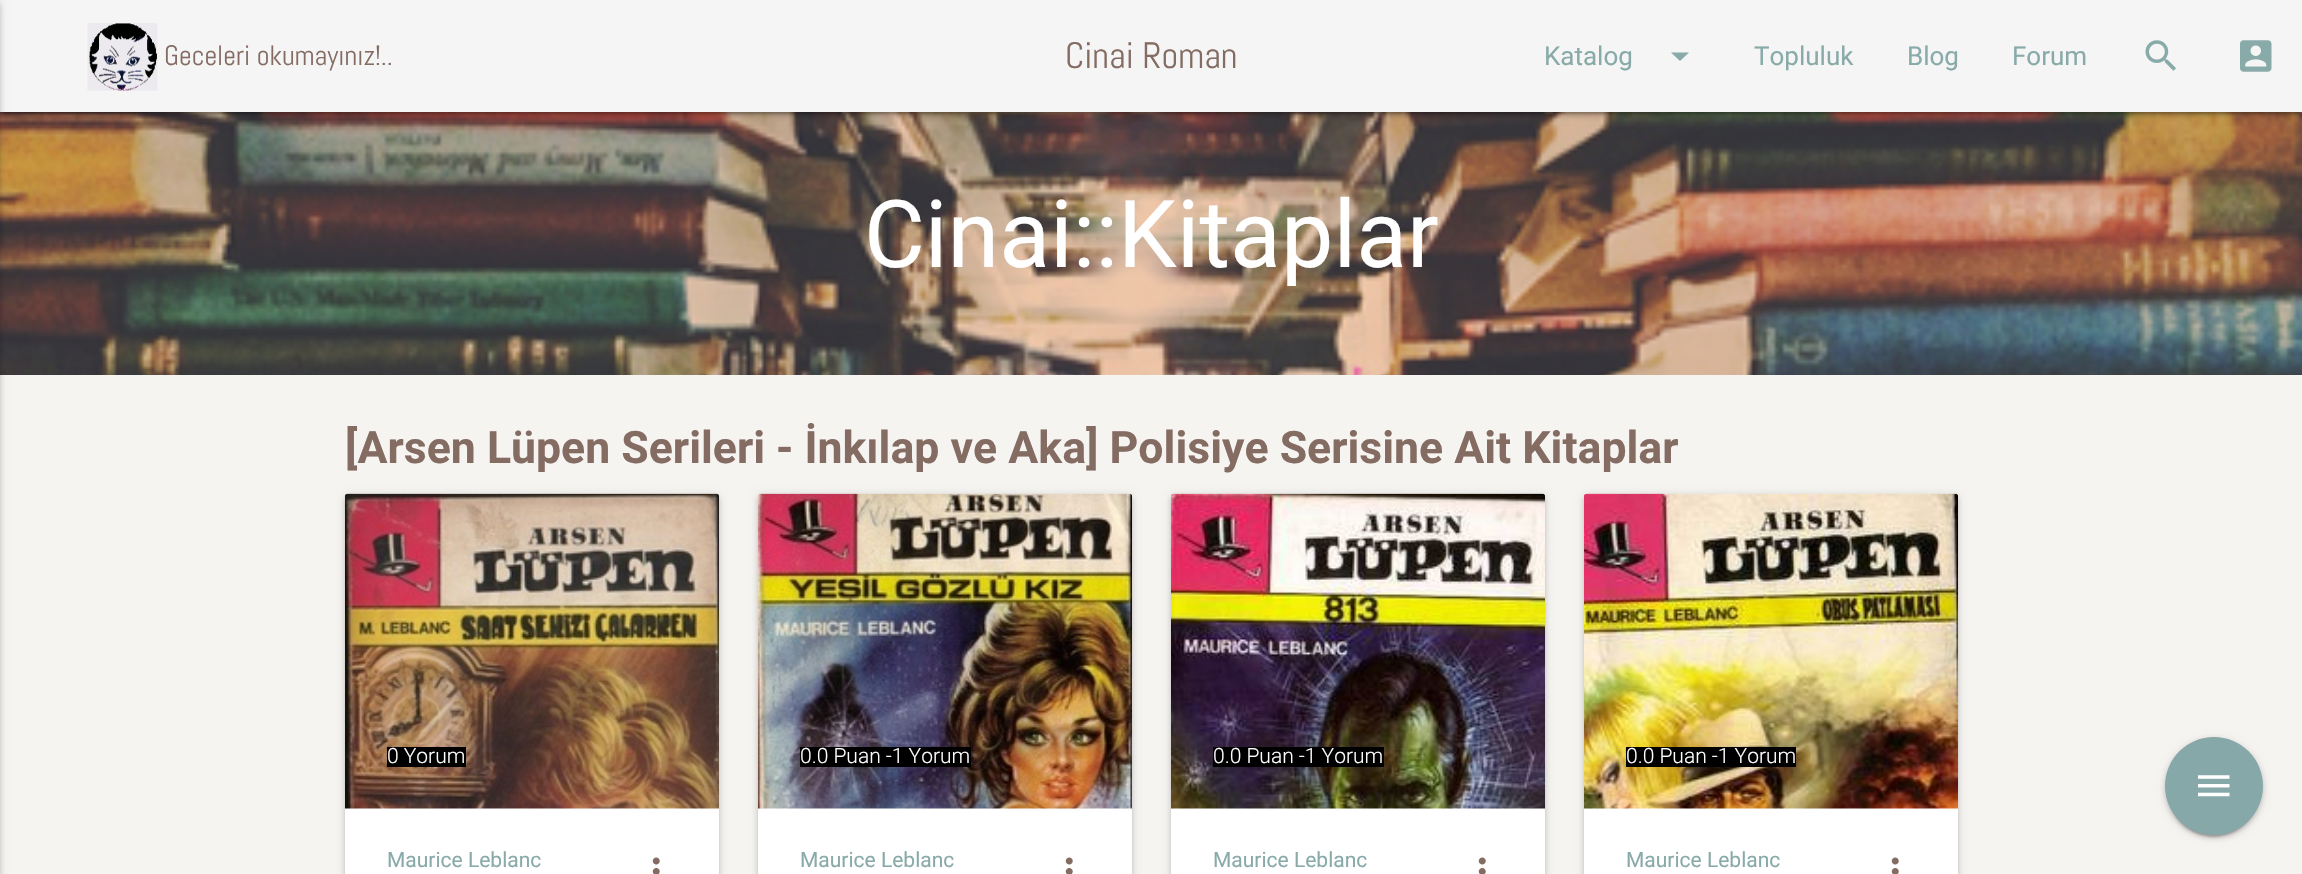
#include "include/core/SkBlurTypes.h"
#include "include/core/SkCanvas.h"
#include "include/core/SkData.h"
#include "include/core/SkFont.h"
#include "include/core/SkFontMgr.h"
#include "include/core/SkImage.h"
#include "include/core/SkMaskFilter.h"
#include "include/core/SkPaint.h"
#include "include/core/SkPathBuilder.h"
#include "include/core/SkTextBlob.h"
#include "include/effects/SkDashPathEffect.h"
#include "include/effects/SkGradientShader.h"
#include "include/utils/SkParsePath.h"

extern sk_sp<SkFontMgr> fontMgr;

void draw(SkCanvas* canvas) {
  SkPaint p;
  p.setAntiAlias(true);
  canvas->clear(SkColorSetRGB(246, 244, 241));
  canvas->drawImageRect(SkImages::DeferredFromEncodedData(SkData::MakeFromFileName("images/4.png")), SkRect::MakeLTRB(0, 112, 2302, 375), SkSamplingOptions());
  p.setColor(SkColorSetARGB(51, 0, 0, 0));
  p.setMaskFilter(SkMaskFilter::MakeBlur(kNormal_SkBlurStyle, 1));
  canvas->drawRect(SkRect::MakeLTRB(4, 9, 2300, 114), p);
  p.setMaskFilter(nullptr);
  p.setColor(SkColorSetARGB(31, 0, 0, 0));
  p.setMaskFilter(SkMaskFilter::MakeBlur(kNormal_SkBlurStyle, 4.5f));
  canvas->drawRect(SkRect::MakeLTRB(0, 2, 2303, 114), p);
  p.setMaskFilter(nullptr);
  p.setColor(SkColorSetARGB(36, 0, 0, 0));
  p.setMaskFilter(SkMaskFilter::MakeBlur(kNormal_SkBlurStyle, 2));
  canvas->drawRect(SkRect::MakeLTRB(0, 4, 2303, 116), p);
  p.setMaskFilter(nullptr);
  p.setColor(SkColorSetRGB(245, 245, 245));
  canvas->drawRect(SkRect::MakeLTRB(0, 0, 2302, 112), p);
  p.setColor(SkColorSetARGB(31, 0, 0, 0));
  p.setMaskFilter(SkMaskFilter::MakeBlur(kNormal_SkBlurStyle, 4.5f));
  canvas->drawRect(SkRect::MakeLTRB(-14, 2, 0, 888), p);
  p.setMaskFilter(nullptr);
  p.setColor(SkColorSetARGB(36, 0, 0, 0));
  p.setMaskFilter(SkMaskFilter::MakeBlur(kNormal_SkBlurStyle, 2));
  canvas->drawRect(SkRect::MakeLTRB(-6, 4, 0, 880), p);
  p.setMaskFilter(nullptr);
  canvas->drawImageRect(SkImages::DeferredFromEncodedData(SkData::MakeFromFileName("images/1.png")), SkRect::MakeLTRB(87, 23, 158, 91), SkSamplingOptions());
  p.setColor(SkColorSetRGB(136, 170, 169));
  canvas->drawPath(SkPathBuilder().moveTo(1671, 52.5f).lineTo(1689, 52.5f).lineTo(1680, 61).close().detach(), p);
  canvas->drawImageRect(SkImages::DeferredFromEncodedData(SkData::MakeFromFileName("images/2.png")), SkRect::MakeLTRB(2145, 40, 2176, 71), SkSamplingOptions());
  canvas->drawImageRect(SkImages::DeferredFromEncodedData(SkData::MakeFromFileName("images/3.png")), SkRect::MakeLTRB(2240, 40, 2272, 72), SkSamplingOptions());
  p.setColor(SkColorSetARGB(31, 0, 0, 0));
  p.setMaskFilter(SkMaskFilter::MakeBlur(kNormal_SkBlurStyle, 4.5f));
  canvas->drawRoundRect(SkRect::MakeLTRB(345, 495, 719, 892), 4, 4, p);
  p.setMaskFilter(nullptr);
  p.setColor(SkColorSetARGB(36, 0, 0, 0));
  p.setMaskFilter(SkMaskFilter::MakeBlur(kNormal_SkBlurStyle, 2));
  canvas->drawRoundRect(SkRect::MakeLTRB(345, 497, 719, 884), 4, 4, p);
  p.setMaskFilter(nullptr);
  p.setColor(SK_ColorWHITE);
  canvas->drawRoundRect(SkRect::MakeLTRB(345, 494, 719, 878), 4, 4, p);
  canvas->drawImageRect(SkImages::DeferredFromEncodedData(SkData::MakeFromFileName("images/5.png")), SkRect::MakeLTRB(345, 493, 719, 809), SkSamplingOptions());
  p.setColor(SK_ColorBLACK);
  canvas->drawRect(SkRect::MakeLTRB(387, 747, 466, 767), p);
  canvas->drawImageRect(SkImages::DeferredFromEncodedData(SkData::MakeFromFileName("images/6.png")), SkRect::MakeLTRB(652, 857, 660, 874), SkSamplingOptions());
  p.setColor(SkColorSetARGB(31, 0, 0, 0));
  p.setMaskFilter(SkMaskFilter::MakeBlur(kNormal_SkBlurStyle, 4.5f));
  canvas->drawRoundRect(SkRect::MakeLTRB(758, 495, 1132, 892), 4, 4, p);
  p.setMaskFilter(nullptr);
  p.setColor(SkColorSetARGB(36, 0, 0, 0));
  p.setMaskFilter(SkMaskFilter::MakeBlur(kNormal_SkBlurStyle, 2));
  canvas->drawRoundRect(SkRect::MakeLTRB(758, 497, 1132, 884), 4, 4, p);
  p.setMaskFilter(nullptr);
  p.setColor(SK_ColorWHITE);
  canvas->drawRoundRect(SkRect::MakeLTRB(758, 494, 1132, 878), 4, 4, p);
  canvas->drawImageRect(SkImages::DeferredFromEncodedData(SkData::MakeFromFileName("images/7.png")), SkRect::MakeLTRB(758, 493, 1132, 809), SkSamplingOptions());
  p.setColor(SK_ColorBLACK);
  canvas->drawRect(SkRect::MakeLTRB(800, 747, 971, 767), p);
  canvas->drawImageRect(SkImages::DeferredFromEncodedData(SkData::MakeFromFileName("images/6.png")), SkRect::MakeLTRB(1065, 857, 1073, 874), SkSamplingOptions());
  p.setColor(SkColorSetARGB(31, 0, 0, 0));
  p.setMaskFilter(SkMaskFilter::MakeBlur(kNormal_SkBlurStyle, 4.5f));
  canvas->drawRoundRect(SkRect::MakeLTRB(1171, 495, 1545, 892), 4, 4, p);
  p.setMaskFilter(nullptr);
  p.setColor(SkColorSetARGB(36, 0, 0, 0));
  p.setMaskFilter(SkMaskFilter::MakeBlur(kNormal_SkBlurStyle, 2));
  canvas->drawRoundRect(SkRect::MakeLTRB(1171, 497, 1545, 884), 4, 4, p);
  p.setMaskFilter(nullptr);
  p.setColor(SK_ColorWHITE);
  canvas->drawRoundRect(SkRect::MakeLTRB(1171, 494, 1545, 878), 4, 4, p);
  canvas->drawImageRect(SkImages::DeferredFromEncodedData(SkData::MakeFromFileName("images/8.png")), SkRect::MakeLTRB(1171, 493, 1545, 809), SkSamplingOptions());
  p.setColor(SK_ColorBLACK);
  canvas->drawRect(SkRect::MakeLTRB(1213, 747, 1384, 767), p);
  canvas->drawImageRect(SkImages::DeferredFromEncodedData(SkData::MakeFromFileName("images/6.png")), SkRect::MakeLTRB(1478, 857, 1486, 874), SkSamplingOptions());
  p.setColor(SkColorSetARGB(31, 0, 0, 0));
  p.setMaskFilter(SkMaskFilter::MakeBlur(kNormal_SkBlurStyle, 4.5f));
  canvas->drawRoundRect(SkRect::MakeLTRB(1584, 495, 1958, 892), 4, 4, p);
  p.setMaskFilter(nullptr);
  p.setColor(SkColorSetARGB(36, 0, 0, 0));
  p.setMaskFilter(SkMaskFilter::MakeBlur(kNormal_SkBlurStyle, 2));
  canvas->drawRoundRect(SkRect::MakeLTRB(1584, 497, 1958, 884), 4, 4, p);
  p.setMaskFilter(nullptr);
  p.setColor(SK_ColorWHITE);
  canvas->drawRoundRect(SkRect::MakeLTRB(1584, 494, 1958, 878), 4, 4, p);
  canvas->drawImageRect(SkImages::DeferredFromEncodedData(SkData::MakeFromFileName("images/9.png")), SkRect::MakeLTRB(1584, 493, 1958, 809), SkSamplingOptions());
  p.setColor(SK_ColorBLACK);
  canvas->drawRect(SkRect::MakeLTRB(1626, 747, 1796, 767), p);
  canvas->drawImageRect(SkImages::DeferredFromEncodedData(SkData::MakeFromFileName("images/6.png")), SkRect::MakeLTRB(1891, 857, 1899, 874), SkSamplingOptions());
  p.setColor(SkColorSetARGB(51, 0, 0, 0));
  p.setMaskFilter(SkMaskFilter::MakeBlur(kNormal_SkBlurStyle, 1));
  canvas->drawRoundRect(SkRect::MakeLTRB(2168, 746, 2259, 837), 45.5f, 45.5f, p);
  p.setMaskFilter(nullptr);
  p.setColor(SkColorSetARGB(31, 0, 0, 0));
  p.setMaskFilter(SkMaskFilter::MakeBlur(kNormal_SkBlurStyle, 4.5f));
  canvas->drawRoundRect(SkRect::MakeLTRB(2165, 739, 2263, 837), 49, 49, p);
  p.setMaskFilter(nullptr);
  p.setColor(SkColorSetARGB(36, 0, 0, 0));
  p.setMaskFilter(SkMaskFilter::MakeBlur(kNormal_SkBlurStyle, 2));
  canvas->drawRoundRect(SkRect::MakeLTRB(2165, 740, 2263, 838), 49, 49, p);
  p.setMaskFilter(nullptr);
  p.setColor(SkColorSetRGB(134, 168, 168));
  canvas->drawCircle(2214, 786, 49, p);
  canvas->drawImageRect(SkImages::DeferredFromEncodedData(SkData::MakeFromFileName("images/10.png")), SkRect::MakeLTRB(2198, 775, 2230, 797), SkSamplingOptions());
  SkFont font1(fontMgr->matchFamilyStyle("Abel", SkFontStyle::Normal()), 28);
  font1.setSubpixel(true);
  p.setColor(SkColorSetRGB(132, 108, 99));
  canvas->drawString("Geceleri okumayınız!..", 164, 65, font1, p);
  SkFont font2(fontMgr->matchFamilyStyle("Abel", SkFontStyle::Normal()), 36.75f);
  font2.setSubpixel(true);
  canvas->drawString("Cinai Roman", 1065, 68, font2, p);
  SkFont font3(fontMgr->matchFamilyStyle("Roboto", SkFontStyle::Normal()), 26);
  font3.setSubpixel(true);
  p.setColor(SkColorSetRGB(136, 170, 169));
  canvas->drawString("Katalog", 1544, 65, font3, p);
  canvas->drawString("Topluluk", 1754, 65, font3, p);
  canvas->drawString("Blog", 1907, 65, font3, p);
  canvas->drawString("Forum", 2012, 65, font3, p);
  SkFont font4(fontMgr->matchFamilyStyle("Roboto", SkFontStyle::Normal()), 93.5f);
  font4.setSubpixel(true);
  p.setColor(SK_ColorWHITE);
  canvas->drawString("Cinai::Kitaplar", 864, 267, font4, p);
  SkFont font5(fontMgr->matchFamilyStyle("Roboto", SkFontStyle::Bold()), 44.6f);
  font5.setSubpixel(true);
  p.setColor(SkColorSetRGB(132, 108, 99));
  canvas->drawString("[Arsen Lüpen Serileri - İnkılap ve Aka] Polisiye Serisine Ait Kitaplar", 345, 463, font5, p);
  SkFont font6(fontMgr->matchFamilyStyle("Roboto", SkFontStyle(300, SkFontStyle::kNormal_Width, SkFontStyle::kUpright_Slant)), 21);
  font6.setSubpixel(true);
  p.setColor(SK_ColorWHITE);
  canvas->drawString("0 Yorum", 387, 763, font6, p);
  SkFont font7(fontMgr->matchFamilyStyle("Roboto", SkFontStyle::Normal()), 21);
  font7.setSubpixel(true);
  p.setColor(SkColorSetRGB(136, 170, 169));
  canvas->drawString("Maurice Leblanc", 387, 867, font7, p);
  p.setColor(SK_ColorWHITE);
  canvas->drawString("0.0 Puan -1 Yorum", 800, 763, font6, p);
  p.setColor(SkColorSetRGB(136, 170, 169));
  canvas->drawString("Maurice Leblanc", 800, 867, font7, p);
  p.setColor(SK_ColorWHITE);
  canvas->drawString("0.0 Puan -1 Yorum", 1213, 763, font6, p);
  p.setColor(SkColorSetRGB(136, 170, 169));
  canvas->drawString("Maurice Leblanc", 1213, 867, font7, p);
  p.setColor(SK_ColorWHITE);
  canvas->drawString("0.0 Puan -1 Yorum", 1626, 763, font6, p);
  p.setColor(SkColorSetRGB(136, 170, 169));
  canvas->drawString("Maurice Leblanc", 1626, 867, font7, p);
}
